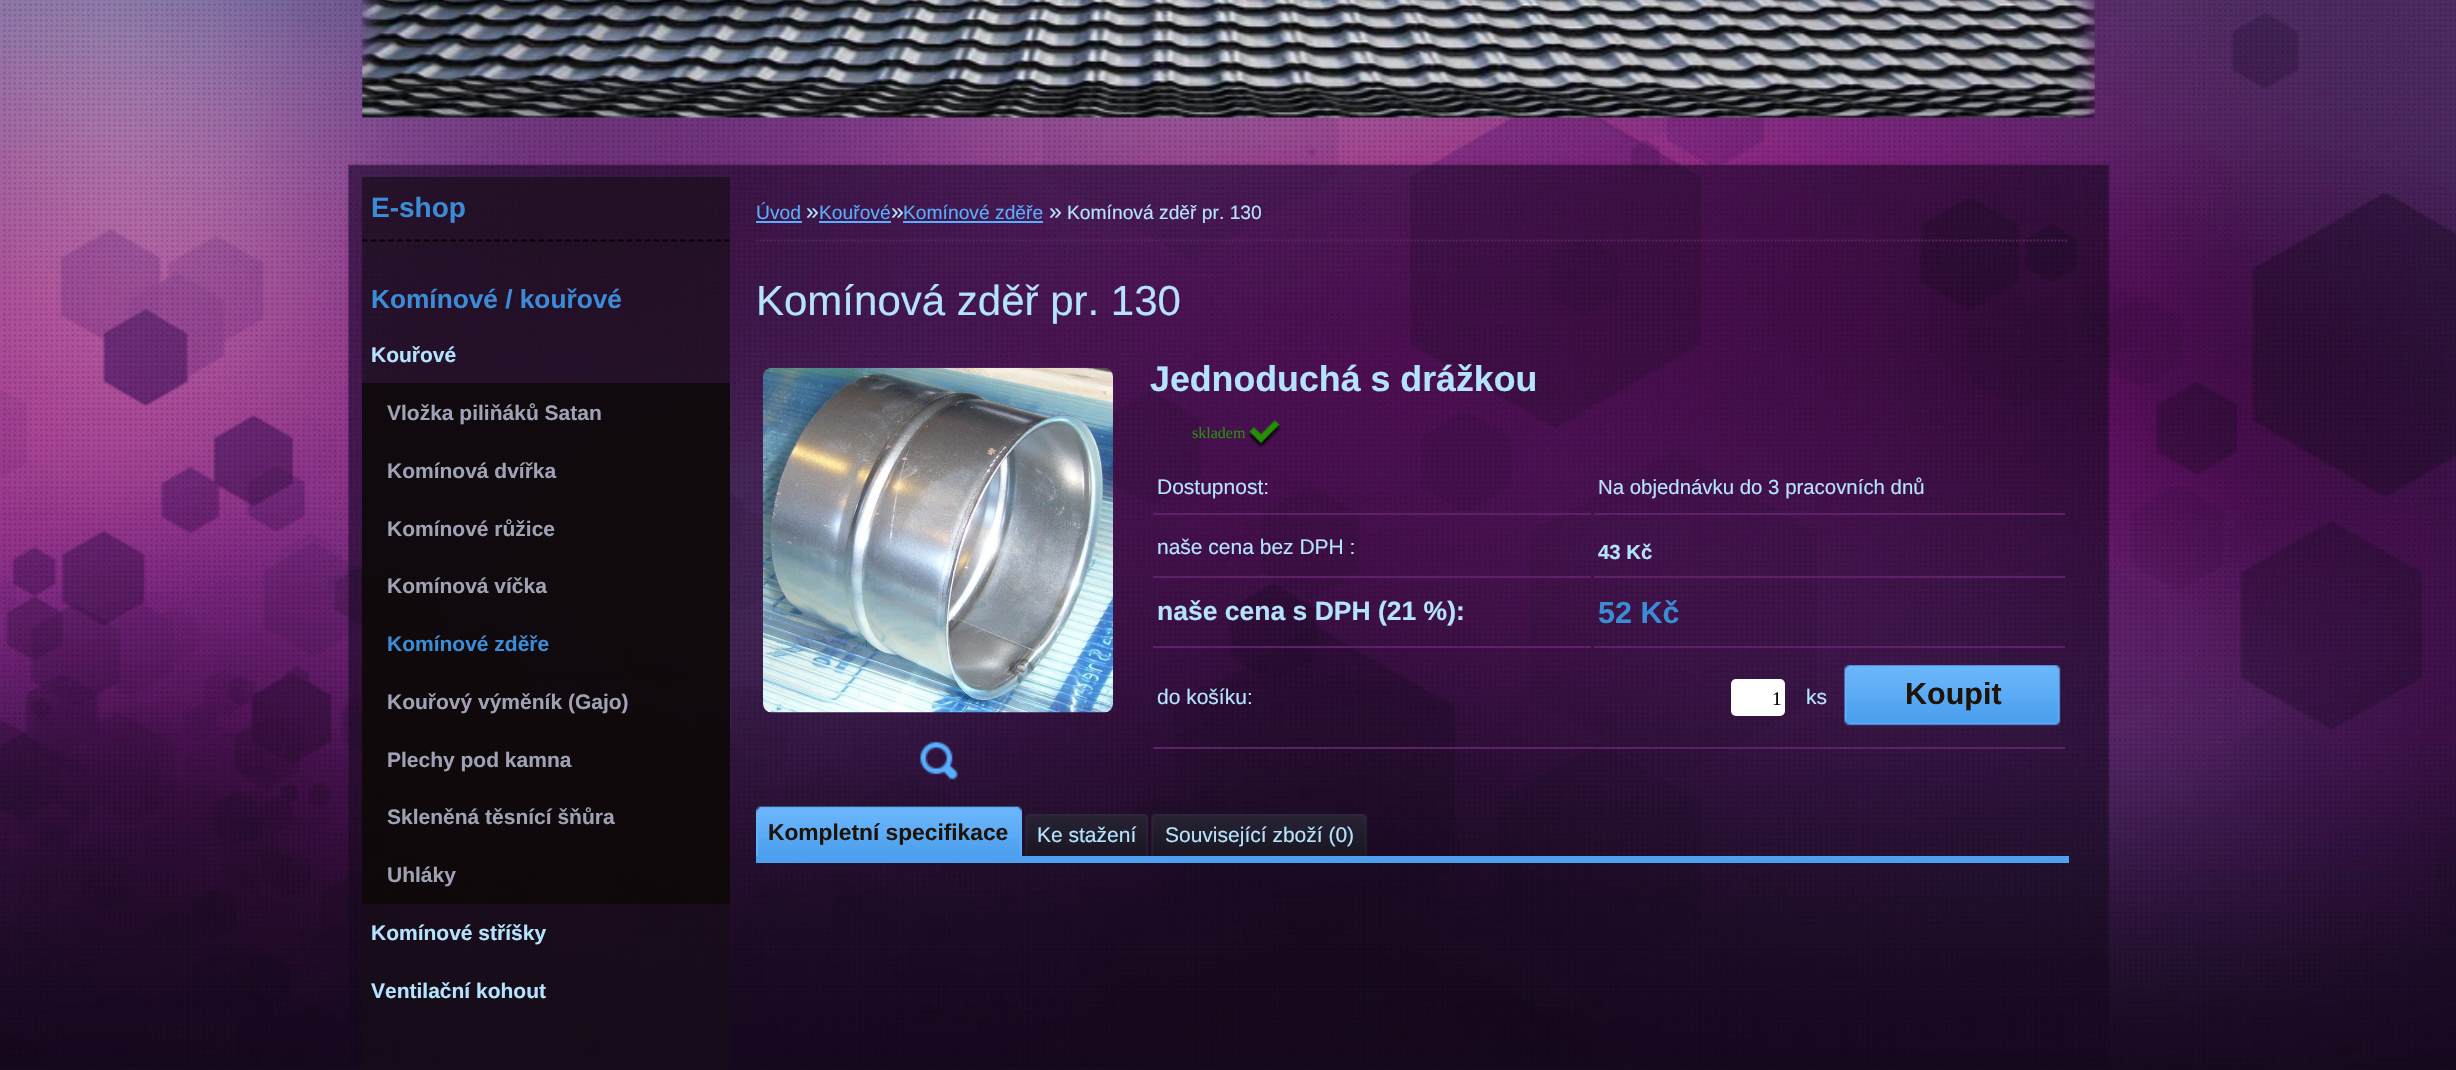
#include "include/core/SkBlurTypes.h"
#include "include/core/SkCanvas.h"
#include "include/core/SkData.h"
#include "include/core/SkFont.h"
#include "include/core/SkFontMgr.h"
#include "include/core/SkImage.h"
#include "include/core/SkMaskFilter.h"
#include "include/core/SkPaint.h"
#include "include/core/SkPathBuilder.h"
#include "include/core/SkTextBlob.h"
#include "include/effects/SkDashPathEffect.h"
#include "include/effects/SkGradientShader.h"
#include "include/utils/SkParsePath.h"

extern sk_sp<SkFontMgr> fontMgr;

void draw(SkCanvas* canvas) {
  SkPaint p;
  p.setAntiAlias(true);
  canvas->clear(SkColorSetRGB(22, 10, 30));
  canvas->drawImageRect(SkImages::DeferredFromEncodedData(SkData::MakeFromFileName("images/1.png")), SkRect::MakeLTRB(0, 0, 2456, 1066), SkSamplingOptions());
  canvas->drawImageRect(SkImages::DeferredFromEncodedData(SkData::MakeFromFileName("images/2.png")), SkRect::MakeLTRB(362, 0, 2095, 118), SkSamplingOptions());
  p.setColor(SkColorSetARGB(166, 22, 12, 22));
  canvas->drawRect(SkRect::MakeLTRB(362, 177, 730, 1070), p);
  p.setStyle(SkPaint::kStroke_Style);
  p.setStrokeWidth(1.8f);
  p.setColor(SK_ColorBLACK);
  p.setPathEffect(SkDashPathEffect::Make({{5.25f, 3.59f}}, 0));
  canvas->drawPath(SkPathBuilder().moveTo(362, 240.5f).lineTo(730, 240.5f).detach(), p);
  p.setPathEffect(nullptr);
  p.setStyle(SkPaint::kFill_Style);
  p.setColor(SkColorSetARGB(214, 12, 7, 7));
  canvas->drawRect(SkRect::MakeLTRB(362, 383, 730, 442), p);
  canvas->drawRect(SkRect::MakeLTRB(362, 441, 730, 499), p);
  canvas->drawRect(SkRect::MakeLTRB(362, 499, 730, 557), p);
  canvas->drawRect(SkRect::MakeLTRB(362, 557, 730, 615), p);
  canvas->drawRect(SkRect::MakeLTRB(362, 615, 730, 673), p);
  canvas->drawRect(SkRect::MakeLTRB(362, 672, 730, 730), p);
  canvas->drawRect(SkRect::MakeLTRB(362, 730, 730, 788), p);
  canvas->drawRect(SkRect::MakeLTRB(362, 788, 730, 846), p);
  canvas->drawRect(SkRect::MakeLTRB(362, 846, 730, 904), p);
  p.setStyle(SkPaint::kStroke_Style);
  p.setColor(SkColorSetRGB(94, 33, 103));
  p.setPathEffect(SkDashPathEffect::Make({{1.75f, 1.75f}}, 0));
  canvas->drawPath(SkPathBuilder().moveTo(756, 240.5f).lineTo(2068.5f, 240.5f).detach(), p);
  p.setPathEffect(nullptr);
  p.setStyle(SkPaint::kFill_Style);
  p.setColor(SkColorSetRGB(89, 175, 255));
  canvas->drawRect(SkRect::MakeLTRB(756, 221, 802, 223), p);
  canvas->drawRect(SkRect::MakeLTRB(819, 221, 891, 223), p);
  canvas->drawRect(SkRect::MakeLTRB(903, 221, 1043, 223), p);
  canvas->drawImageRect(SkImages::DeferredFromEncodedData(SkData::MakeFromFileName("images/3.png")), SkRect::MakeLTRB(763, 367, 1113, 713), SkSamplingOptions());
  canvas->drawImageRect(SkImages::DeferredFromEncodedData(SkData::MakeFromFileName("images/4.png")), SkRect::MakeLTRB(920, 741, 958, 780), SkSamplingOptions());
  canvas->drawImageRect(SkImages::DeferredFromEncodedData(SkData::MakeFromFileName("images/5.png")), SkRect::MakeLTRB(1248, 419, 1281, 448), SkSamplingOptions());
  p.setColor(SkColorSetRGB(94, 33, 103));
  canvas->drawRect(SkRect::MakeLTRB(1153, 513, 1591, 515), p);
  canvas->drawRect(SkRect::MakeLTRB(1594, 513, 2065, 515), p);
  canvas->drawRect(SkRect::MakeLTRB(1153, 576, 1591, 578), p);
  canvas->drawRect(SkRect::MakeLTRB(1594, 576, 2065, 578), p);
  canvas->drawRect(SkRect::MakeLTRB(1153, 646, 1591, 648), p);
  canvas->drawRect(SkRect::MakeLTRB(1594, 646, 2065, 648), p);
  canvas->drawRect(SkRect::MakeLTRB(1153, 747, 2065, 749), p);
  p.setColor(SK_ColorWHITE);
  canvas->drawRoundRect(SkRect::MakeLTRB(1731, 679, 1785, 716), 5, 5, p);
  canvas->drawImageRect(SkImages::DeferredFromEncodedData(SkData::MakeFromFileName("images/6.png")), SkRect::MakeLTRB(1844, 665, 2061, 726), SkSamplingOptions());
  canvas->drawImageRect(SkImages::DeferredFromEncodedData(SkData::MakeFromFileName("images/7.png")), SkRect::MakeLTRB(756, 806, 1019, 856), SkSamplingOptions());
  canvas->drawImageRect(SkImages::DeferredFromEncodedData(SkData::MakeFromFileName("images/8.png")), SkRect::MakeLTRB(759, 806, 1022, 856), SkSamplingOptions());
  canvas->drawImageRect(SkImages::DeferredFromEncodedData(SkData::MakeFromFileName("images/9.png")), SkRect::MakeLTRB(1025, 814, 1145, 856), SkSamplingOptions());
  canvas->drawImageRect(SkImages::DeferredFromEncodedData(SkData::MakeFromFileName("images/10.png")), SkRect::MakeLTRB(1144, 814, 1148, 856), SkSamplingOptions());
  canvas->drawImageRect(SkImages::DeferredFromEncodedData(SkData::MakeFromFileName("images/11.png")), SkRect::MakeLTRB(1151, 814, 1364, 856), SkSamplingOptions());
  canvas->drawImageRect(SkImages::DeferredFromEncodedData(SkData::MakeFromFileName("images/12.png")), SkRect::MakeLTRB(1363, 814, 1367, 856), SkSamplingOptions());
  p.setColor(SkColorSetRGB(76, 160, 238));
  canvas->drawRect(SkRect::MakeLTRB(756, 856, 2069, 863), p);
  SkFont font1(fontMgr->matchFamilyStyle("Liberation Sans", SkFontStyle::Bold()), 28);
  font1.setSubpixel(true);
  p.setColor(SkColorSetRGB(59, 140, 215));
  canvas->drawString("E-shop", 371, 217, font1, p);
  SkFont font2(fontMgr->matchFamilyStyle("Liberation Sans", SkFontStyle::Bold()), 26.25f);
  font2.setSubpixel(true);
  canvas->drawString("Komínové / kouřové", 371, 308, font2, p);
  SkFont font3(fontMgr->matchFamilyStyle("Liberation Sans", SkFontStyle::Bold()), 21);
  font3.setSubpixel(true);
  p.setColor(SkColorSetRGB(180, 227, 254));
  canvas->drawString("Kouřové", 371, 362, font3, p);
  p.setColor(SkColorSetRGB(159, 162, 181));
  canvas->drawString("Vložka piliňáků Satan", 387, 420, font3, p);
  canvas->drawString("Komínová dvířka", 387, 478, font3, p);
  canvas->drawString("Komínové růžice", 387, 536, font3, p);
  canvas->drawString("Komínová víčka", 387, 593, font3, p);
  p.setColor(SkColorSetRGB(59, 140, 215));
  canvas->drawString("Komínové zděře", 387, 651, font3, p);
  p.setColor(SkColorSetRGB(159, 162, 181));
  canvas->drawString("Kouřový výměník (Gajo)", 387, 709, font3, p);
  canvas->drawString("Plechy pod kamna", 387, 767, font3, p);
  canvas->drawString("Skleněná těsnící šňůra", 387, 824, font3, p);
  canvas->drawString("Uhláky", 387, 882, font3, p);
  p.setColor(SkColorSetRGB(180, 227, 254));
  canvas->drawString("Komínové stříšky", 371, 940, font3, p);
  canvas->drawString("Ventilační kohout", 371, 998, font3, p);
  SkFont font4(fontMgr->matchFamilyStyle("Liberation Sans", SkFontStyle::Normal()), 19.25f);
  font4.setSubpixel(true);
  p.setColor(SkColorSetRGB(89, 175, 255));
  canvas->drawString("Úvod", 756, 219, font4, p);
  SkFont font5(fontMgr->matchFamilyStyle("Liberation Sans", SkFontStyle::Normal()), 23);
  font5.setSubpixel(true);
  p.setColor(SkColorSetRGB(180, 227, 254));
  canvas->drawString("»", 806, 219, font5, p);
  p.setColor(SkColorSetRGB(89, 175, 255));
  canvas->drawString("Kouřové", 819, 219, font4, p);
  p.setColor(SkColorSetRGB(180, 227, 254));
  canvas->drawString("»", 891, 219, font5, p);
  p.setColor(SkColorSetRGB(89, 175, 255));
  canvas->drawString("Komínové zděře", 903, 219, font4, p);
  p.setColor(SkColorSetRGB(180, 227, 254));
  canvas->drawString("»", 1049, 219, font5, p);
  canvas->drawString("Komínová zděř pr. 130", 1067, 219, font4, p);
  SkFont font6(fontMgr->matchFamilyStyle("Liberation Sans", SkFontStyle::Normal()), 42);
  font6.setSubpixel(true);
  canvas->drawString("Komínová zděř pr. 130", 756, 315, font6, p);
  SkFont font7(fontMgr->matchFamilyStyle("Liberation Sans", SkFontStyle::Bold()), 35.75f);
  font7.setSubpixel(true);
  canvas->drawString("Jednoduchá s drážkou", 1150, 391, font7, p);
  SkFont font8(fontMgr->matchFamilyStyle("Liberation Serif", SkFontStyle::Normal()), 16);
  font8.setSubpixel(true);
  p.setColor(SkColorSetRGB(36, 144, 7));
  canvas->drawString("skladem", 1192, 438, font8, p);
  SkFont font9(fontMgr->matchFamilyStyle("Liberation Sans", SkFontStyle::Normal()), 21);
  font9.setSubpixel(true);
  p.setColor(SkColorSetRGB(180, 227, 254));
  canvas->drawString("Dostupnost:", 1157, 494, font9, p);
  SkFont font10(fontMgr->matchFamilyStyle("Liberation Sans", SkFontStyle::Normal()), 20.4f);
  font10.setSubpixel(true);
  canvas->drawString("Na objednávku do 3 pracovních dnů", 1598, 494, font10, p);
  canvas->drawString("naše cena bez DPH :", 1157, 554, font9, p);
  SkFont font11(fontMgr->matchFamilyStyle("Liberation Sans", SkFontStyle::Bold()), 20.4f);
  font11.setSubpixel(true);
  canvas->drawString("43 Kč", 1598, 559, font11, p);
  SkFont font12(fontMgr->matchFamilyStyle("Liberation Sans", SkFontStyle::Bold()), 26.5f);
  font12.setSubpixel(true);
  canvas->drawString("naše cena s DPH (21 %):", 1157, 620, font12, p);
  SkFont font13(fontMgr->matchFamilyStyle("Liberation Sans", SkFontStyle::Bold()), 30.5f);
  font13.setSubpixel(true);
  p.setColor(SkColorSetRGB(59, 140, 215));
  canvas->drawString("52 Kč", 1598, 623, font13, p);
  p.setColor(SkColorSetRGB(180, 227, 254));
  canvas->drawString("do košíku:", 1157, 704, font9, p);
  SkFont font14(fontMgr->matchFamilyStyle("Liberation Serif", SkFontStyle::Normal()), 19.25f);
  font14.setSubpixel(true);
  p.setColor(SK_ColorBLACK);
  canvas->drawString("1", 1772, 705, font14, p);
  p.setColor(SkColorSetRGB(180, 227, 254));
  canvas->drawString("ks", 1806, 704, font9, p);
  p.setColor(SkColorSetRGB(29, 19, 11));
  canvas->drawString("Koupit", 1905, 704, font13, p);
  SkFont font15(fontMgr->matchFamilyStyle("Liberation Sans", SkFontStyle::Bold()), 22.75f);
  font15.setSubpixel(true);
  canvas->drawString("Kompletní specifikace", 768, 840, font15, p);
  p.setColor(SkColorSetRGB(180, 227, 254));
  canvas->drawString("Ke stažení", 1037, 842, font9, p);
  canvas->drawString("Související zboží (0)", 1165, 842, font9, p);
}
